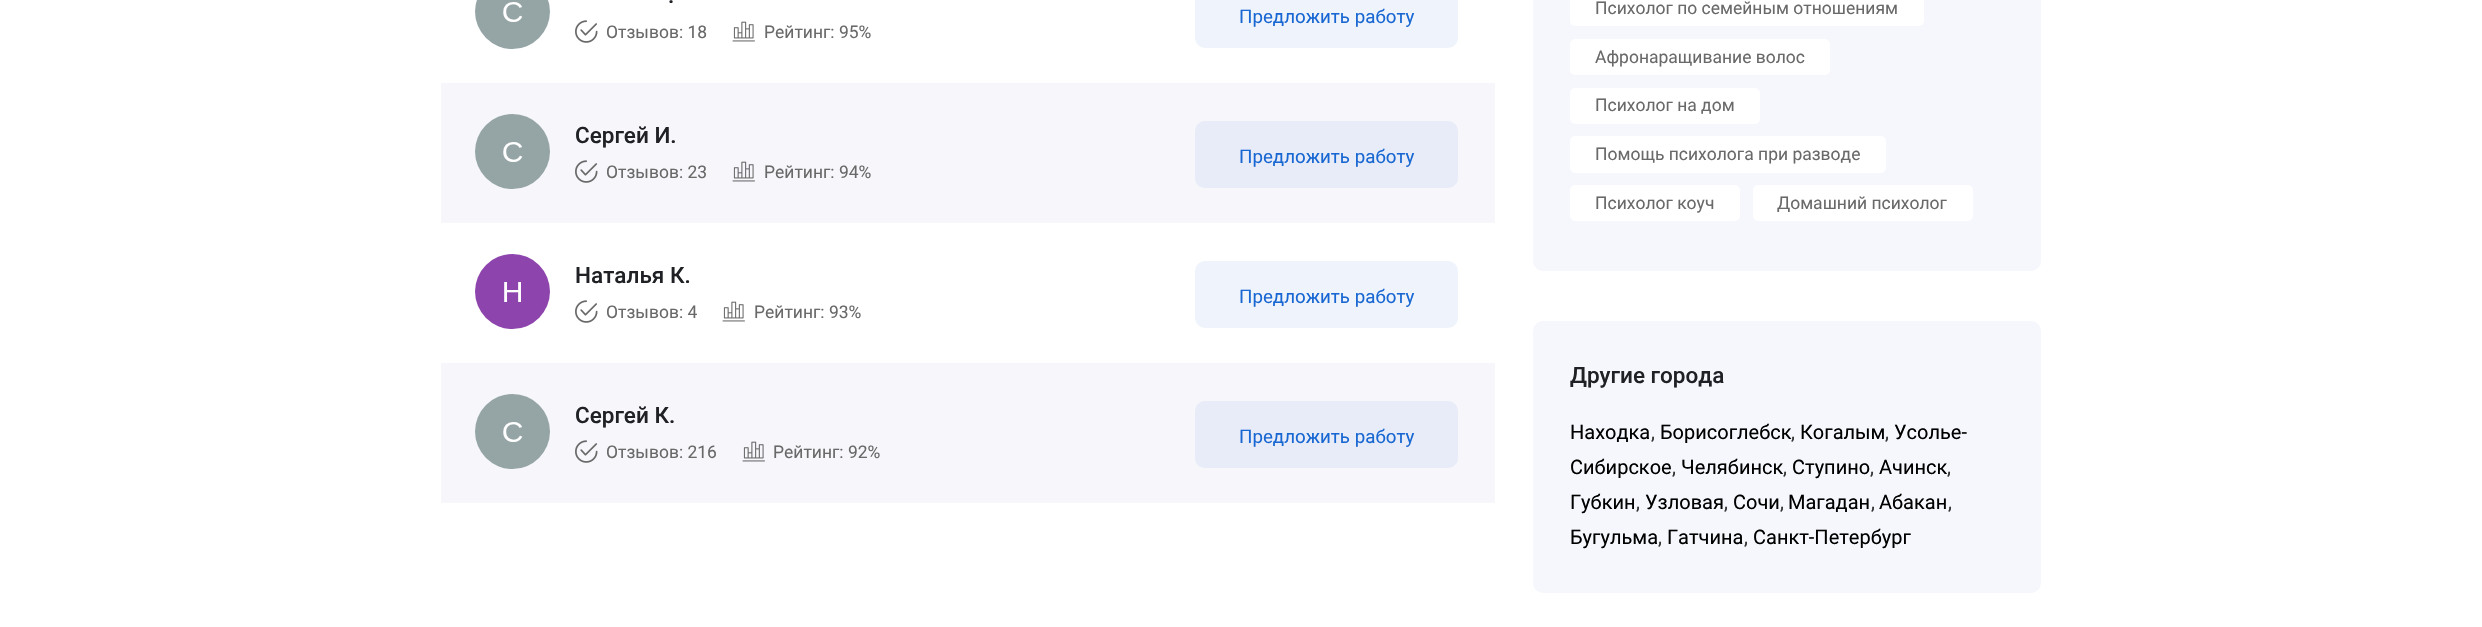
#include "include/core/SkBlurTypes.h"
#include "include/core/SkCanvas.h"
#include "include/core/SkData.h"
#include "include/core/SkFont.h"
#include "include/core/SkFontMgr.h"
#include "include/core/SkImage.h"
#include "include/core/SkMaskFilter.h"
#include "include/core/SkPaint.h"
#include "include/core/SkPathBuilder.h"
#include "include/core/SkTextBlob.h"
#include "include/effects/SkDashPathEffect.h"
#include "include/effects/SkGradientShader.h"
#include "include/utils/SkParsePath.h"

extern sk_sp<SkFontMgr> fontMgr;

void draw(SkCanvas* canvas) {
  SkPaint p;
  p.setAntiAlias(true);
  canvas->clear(SK_ColorWHITE);
  canvas->drawImageRect(SkImages::DeferredFromEncodedData(SkData::MakeFromFileName("images/1.png")), SkRect::MakeLTRB(475, 0, 550, 49), SkSamplingOptions());
  canvas->drawImageRect(SkImages::DeferredFromEncodedData(SkData::MakeFromFileName("images/2.png")), SkRect::MakeLTRB(575, 20, 598, 43), SkSamplingOptions());
  canvas->drawImageRect(SkImages::DeferredFromEncodedData(SkData::MakeFromFileName("images/3.png")), SkRect::MakeLTRB(732, 21, 755, 42), SkSamplingOptions());
  p.setColor(SkColorSetRGB(239, 244, 252));
  canvas->drawRoundRect(SkRect::MakeLTRB(1195, -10, 1458, 48), 10, 10, p);
  p.setColor(SkColorSetRGB(246, 246, 251));
  canvas->drawRect(SkRect::MakeLTRB(441, 83, 1495, 223), p);
  canvas->drawImageRect(SkImages::DeferredFromEncodedData(SkData::MakeFromFileName("images/4.png")), SkRect::MakeLTRB(475, 114, 550, 189), SkSamplingOptions());
  canvas->drawImageRect(SkImages::DeferredFromEncodedData(SkData::MakeFromFileName("images/5.png")), SkRect::MakeLTRB(575, 160, 598, 183), SkSamplingOptions());
  canvas->drawImageRect(SkImages::DeferredFromEncodedData(SkData::MakeFromFileName("images/6.png")), SkRect::MakeLTRB(732, 161, 755, 182), SkSamplingOptions());
  p.setColor(SkColorSetRGB(231, 236, 248));
  canvas->drawRoundRect(SkRect::MakeLTRB(1195, 121, 1458, 188), 10, 10, p);
  canvas->drawImageRect(SkImages::DeferredFromEncodedData(SkData::MakeFromFileName("images/7.png")), SkRect::MakeLTRB(475, 254, 550, 329), SkSamplingOptions());
  canvas->drawImageRect(SkImages::DeferredFromEncodedData(SkData::MakeFromFileName("images/2.png")), SkRect::MakeLTRB(575, 300, 598, 323), SkSamplingOptions());
  canvas->drawImageRect(SkImages::DeferredFromEncodedData(SkData::MakeFromFileName("images/3.png")), SkRect::MakeLTRB(722, 301, 745, 322), SkSamplingOptions());
  p.setColor(SkColorSetRGB(239, 244, 252));
  canvas->drawRoundRect(SkRect::MakeLTRB(1195, 261, 1458, 328), 10, 10, p);
  p.setColor(SkColorSetRGB(246, 246, 251));
  canvas->drawRect(SkRect::MakeLTRB(441, 363, 1495, 503), p);
  canvas->drawImageRect(SkImages::DeferredFromEncodedData(SkData::MakeFromFileName("images/4.png")), SkRect::MakeLTRB(475, 394, 550, 469), SkSamplingOptions());
  canvas->drawImageRect(SkImages::DeferredFromEncodedData(SkData::MakeFromFileName("images/5.png")), SkRect::MakeLTRB(575, 440, 598, 463), SkSamplingOptions());
  canvas->drawImageRect(SkImages::DeferredFromEncodedData(SkData::MakeFromFileName("images/6.png")), SkRect::MakeLTRB(742, 441, 765, 462), SkSamplingOptions());
  p.setColor(SkColorSetRGB(231, 236, 248));
  canvas->drawRoundRect(SkRect::MakeLTRB(1195, 401, 1458, 468), 10, 10, p);
  p.setColor(SkColorSetRGB(245, 247, 252));
  canvas->drawRoundRect(SkRect::MakeLTRB(1533, -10, 2041, 271), 10, 10, p);
  p.setColor(SK_ColorWHITE);
  canvas->drawRoundRect(SkRect::MakeLTRB(1570, -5, 1924, 26), 5, 5, p);
  canvas->drawRoundRect(SkRect::MakeLTRB(1570, 39, 1830, 75), 5, 5, p);
  canvas->drawRoundRect(SkRect::MakeLTRB(1570, 88, 1760, 124), 5, 5, p);
  canvas->drawRoundRect(SkRect::MakeLTRB(1570, 136, 1886, 173), 5, 5, p);
  canvas->drawRoundRect(SkRect::MakeLTRB(1570, 185, 1740, 221), 5, 5, p);
  canvas->drawRoundRect(SkRect::MakeLTRB(1753, 185, 1973, 221), 5, 5, p);
  p.setColor(SkColorSetRGB(245, 247, 252));
  canvas->drawRoundRect(SkRect::MakeLTRB(1533, 321, 2041, 593), 10, 10, p);
  SkFont font1(fontMgr->matchFamilyStyle("Roboto", SkFontStyle(500, SkFontStyle::kNormal_Width, SkFontStyle::kUpright_Slant)), 22.5f);
  font1.setSubpixel(true);
  p.setColor(SkColorSetRGB(32, 33, 36));
  canvas->drawString(".", 668, 3, font1, p);
  SkFont font2(fontMgr->matchFamilyStyle("Roboto", SkFontStyle::Normal()), 17.5f);
  font2.setSubpixel(true);
  p.setColor(SkColorSetRGB(105, 105, 105));
  canvas->drawString("Отзывов: 18", 606, 38, font2, p);
  canvas->drawString("Рейтинг: 95%", 764, 38, font2, p);
  SkFont font3(fontMgr->matchFamilyStyle("Roboto", SkFontStyle::Normal()), 18.75f);
  font3.setSubpixel(true);
  p.setColor(SkColorSetRGB(25, 103, 210));
  canvas->drawString("Предложить работу", 1239, 23, font3, p);
  p.setColor(SkColorSetRGB(32, 33, 36));
  canvas->drawString("Сергей И.", 575, 143, font1, p);
  p.setColor(SkColorSetRGB(105, 105, 105));
  canvas->drawString("Отзывов: 23", 606, 178, font2, p);
  canvas->drawString("Рейтинг: 94%", 764, 178, font2, p);
  p.setColor(SkColorSetRGB(25, 103, 210));
  canvas->drawString("Предложить работу", 1239, 163, font3, p);
  p.setColor(SkColorSetRGB(32, 33, 36));
  canvas->drawString("Наталья К.", 575, 283, font1, p);
  p.setColor(SkColorSetRGB(105, 105, 105));
  canvas->drawString("Отзывов: 4", 606, 318, font2, p);
  canvas->drawString("Рейтинг: 93%", 754, 318, font2, p);
  p.setColor(SkColorSetRGB(25, 103, 210));
  canvas->drawString("Предложить работу", 1239, 303, font3, p);
  p.setColor(SkColorSetRGB(32, 33, 36));
  canvas->drawString("Сергей К.", 575, 423, font1, p);
  p.setColor(SkColorSetRGB(105, 105, 105));
  canvas->drawString("Отзывов: 216", 606, 458, font2, p);
  canvas->drawString("Рейтинг: 92%", 773, 458, font2, p);
  p.setColor(SkColorSetRGB(25, 103, 210));
  canvas->drawString("Предложить работу", 1239, 443, font3, p);
  p.setColor(SkColorSetRGB(105, 105, 105));
  canvas->drawString("Психолог по семейным отношениям", 1595, 14, font2, p);
  canvas->drawString("Афронаращивание волос", 1595, 63, font2, p);
  canvas->drawString("Психолог на дом", 1595, 111, font2, p);
  canvas->drawString("Помощь психолога при разводе", 1595, 160, font2, p);
  canvas->drawString("Психолог коуч", 1595, 209, font2, p);
  canvas->drawString("Домашний психолог", 1777, 209, font2, p);
  p.setColor(SkColorSetRGB(32, 33, 36));
  canvas->drawString("Другие города", 1570, 383, font1, p);
  SkFont font4(fontMgr->matchFamilyStyle("Roboto", SkFontStyle::Normal()), 20);
  font4.setSubpixel(true);
  p.setColor(SK_ColorBLACK);
  canvas->drawString("Находка", 1570, 439, font4, p);
  p.setColor(SkColorSetRGB(54, 54, 54));
  canvas->drawString(",", 1651, 439, font4, p);
  p.setColor(SK_ColorBLACK);
  canvas->drawString("Борисоглебск", 1660, 439, font4, p);
  p.setColor(SkColorSetRGB(54, 54, 54));
  canvas->drawString(",", 1791, 439, font4, p);
  p.setColor(SK_ColorBLACK);
  canvas->drawString("Когалым", 1800, 439, font4, p);
  p.setColor(SkColorSetRGB(54, 54, 54));
  canvas->drawString(",", 1885, 439, font4, p);
  p.setColor(SK_ColorBLACK);
  canvas->drawString("Усолье-", 1894, 439, font4, p);
  canvas->drawString("Сибирское", 1570, 474, font4, p);
  p.setColor(SkColorSetRGB(54, 54, 54));
  canvas->drawString(",", 1672, 474, font4, p);
  p.setColor(SK_ColorBLACK);
  canvas->drawString("Челябинск", 1681, 474, font4, p);
  p.setColor(SkColorSetRGB(54, 54, 54));
  canvas->drawString(",", 1783, 474, font4, p);
  p.setColor(SK_ColorBLACK);
  canvas->drawString("Ступино", 1792, 474, font4, p);
  p.setColor(SkColorSetRGB(54, 54, 54));
  canvas->drawString(",", 1870, 474, font4, p);
  p.setColor(SK_ColorBLACK);
  canvas->drawString("Ачинск", 1879, 474, font4, p);
  p.setColor(SkColorSetRGB(54, 54, 54));
  canvas->drawString(",", 1947, 474, font4, p);
  p.setColor(SK_ColorBLACK);
  canvas->drawString("Губкин", 1570, 509, font4, p);
  p.setColor(SkColorSetRGB(54, 54, 54));
  canvas->drawString(",", 1636, 509, font4, p);
  p.setColor(SK_ColorBLACK);
  canvas->drawString("Узловая", 1645, 509, font4, p);
  p.setColor(SkColorSetRGB(54, 54, 54));
  canvas->drawString(",", 1724, 509, font4, p);
  p.setColor(SK_ColorBLACK);
  canvas->drawString("Сочи", 1733, 509, font4, p);
  p.setColor(SkColorSetRGB(54, 54, 54));
  canvas->drawString(",", 1780, 509, font4, p);
  p.setColor(SK_ColorBLACK);
  canvas->drawString("Магадан", 1788, 509, font4, p);
  p.setColor(SkColorSetRGB(54, 54, 54));
  canvas->drawString(",", 1871, 509, font4, p);
  p.setColor(SK_ColorBLACK);
  canvas->drawString("Абакан", 1879, 509, font4, p);
  p.setColor(SkColorSetRGB(54, 54, 54));
  canvas->drawString(",", 1948, 509, font4, p);
  p.setColor(SK_ColorBLACK);
  canvas->drawString("Бугульма", 1570, 544, font4, p);
  p.setColor(SkColorSetRGB(54, 54, 54));
  canvas->drawString(",", 1658, 544, font4, p);
  p.setColor(SK_ColorBLACK);
  canvas->drawString("Гатчина", 1667, 544, font4, p);
  p.setColor(SkColorSetRGB(54, 54, 54));
  canvas->drawString(",", 1744, 544, font4, p);
  p.setColor(SK_ColorBLACK);
  canvas->drawString("Санкт-Петербург", 1753, 544, font4, p);
}
